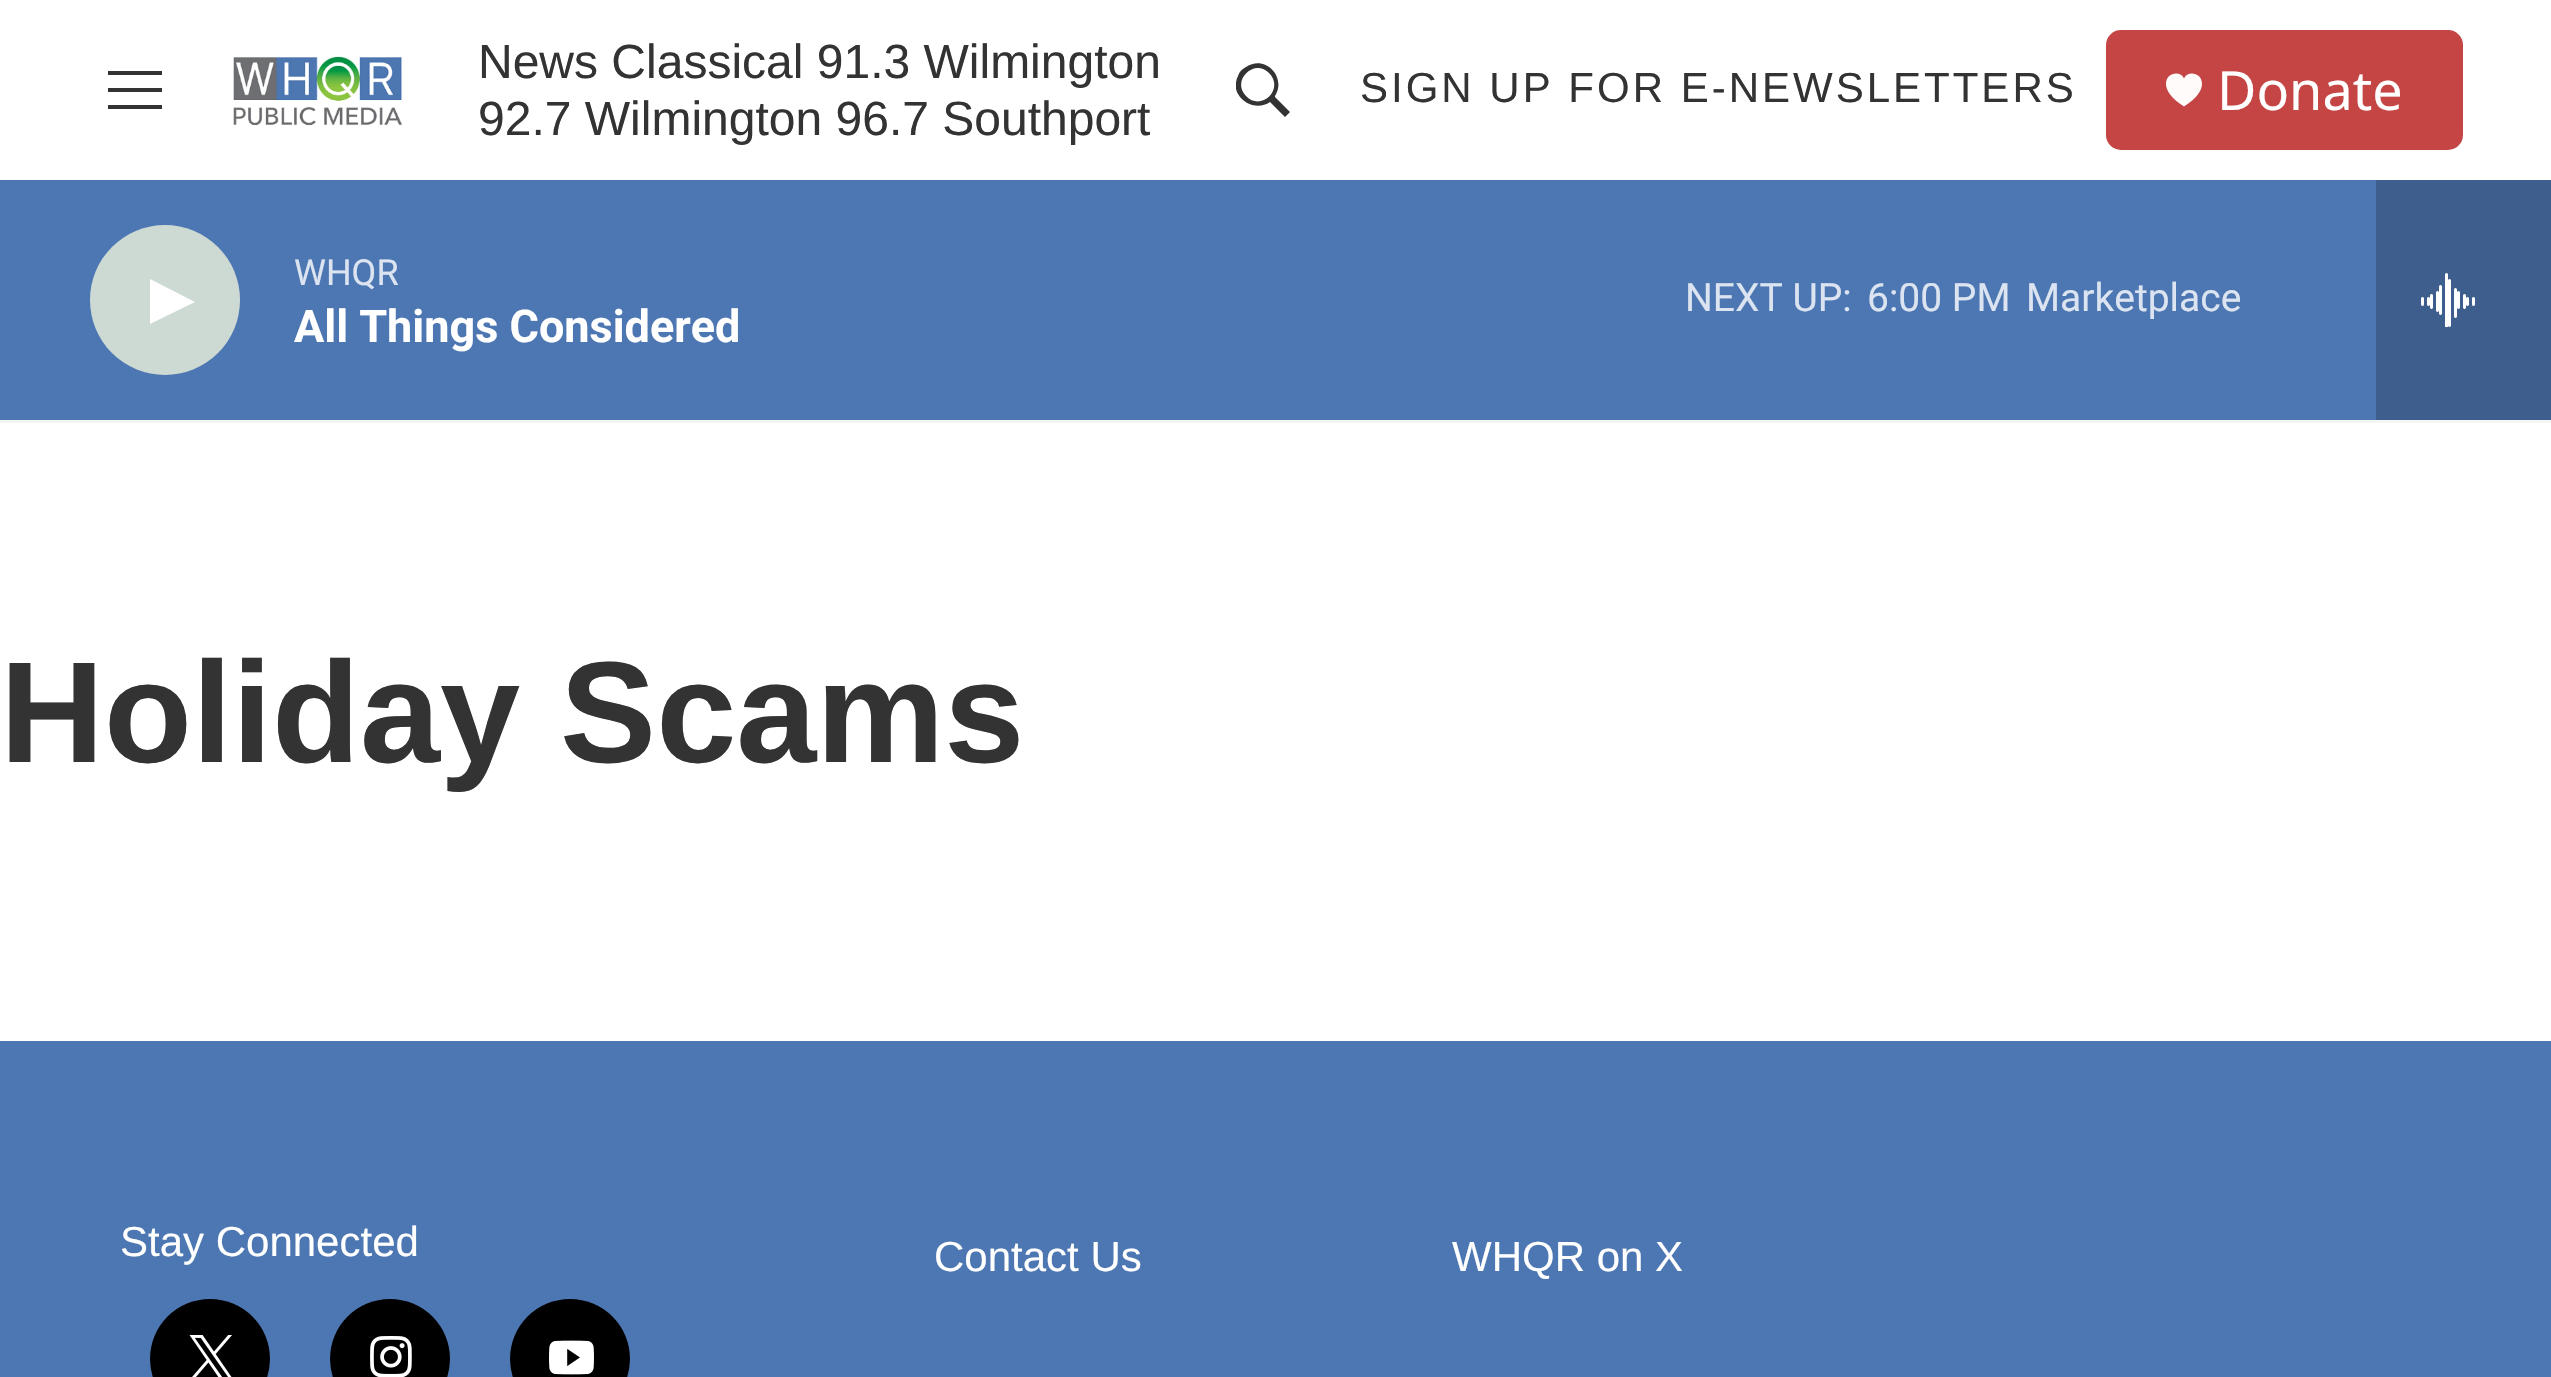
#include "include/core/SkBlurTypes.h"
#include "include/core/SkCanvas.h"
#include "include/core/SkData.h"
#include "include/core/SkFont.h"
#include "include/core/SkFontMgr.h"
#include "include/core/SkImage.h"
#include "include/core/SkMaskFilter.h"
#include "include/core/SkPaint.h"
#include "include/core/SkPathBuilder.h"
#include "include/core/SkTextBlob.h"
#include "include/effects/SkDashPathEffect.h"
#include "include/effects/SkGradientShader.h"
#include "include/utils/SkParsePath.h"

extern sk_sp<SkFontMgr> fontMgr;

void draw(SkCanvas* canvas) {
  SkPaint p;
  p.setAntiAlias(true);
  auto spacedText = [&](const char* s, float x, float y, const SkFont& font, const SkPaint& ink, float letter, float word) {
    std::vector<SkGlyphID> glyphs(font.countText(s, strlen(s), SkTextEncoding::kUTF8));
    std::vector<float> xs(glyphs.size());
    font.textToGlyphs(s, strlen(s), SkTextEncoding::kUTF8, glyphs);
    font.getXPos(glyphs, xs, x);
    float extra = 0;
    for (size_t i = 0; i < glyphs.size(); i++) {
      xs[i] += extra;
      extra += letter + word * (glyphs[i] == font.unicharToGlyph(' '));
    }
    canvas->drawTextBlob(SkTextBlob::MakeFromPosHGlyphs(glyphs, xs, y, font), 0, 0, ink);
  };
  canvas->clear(SK_ColorWHITE);
  p.setColor(SkColorSetRGB(245, 245, 245));
  canvas->drawRect(SkRect::MakeLTRB(0, 420, 2551, 423), p);
  p.setColor(SkColorSetRGB(51, 51, 51));
  canvas->drawPath(SkPathBuilder(SkPathFillType::kEvenOdd).moveTo(108, 92).lineTo(108, 88).lineTo(162, 88).lineTo(162, 92).close().moveTo(108, 75).lineTo(108, 71).lineTo(162, 71).lineTo(162, 75).close().moveTo(108, 109).lineTo(108, 105).lineTo(162, 105).lineTo(162, 109).close().detach(), p);
  canvas->drawImageRect(SkImages::DeferredFromEncodedData(SkData::MakeFromFileName("images/1.png")), SkRect::MakeLTRB(233, 56, 402, 126), SkSamplingOptions());
  canvas->save();
  canvas->clipRect(SkRect::MakeLTRB(1236, 63, 1290, 117));
  canvas->drawPath(SkPathBuilder(SkPathFillType::kEvenOdd).moveTo(1275, 96).lineTo(1275, 97).lineTo(1290, 112).lineTo(1285, 117).lineTo(1270, 102).cubicTo(1260, 109, 1245, 106, 1238, 94).cubicTo(1235, 89, 1235, 82, 1238, 76).cubicTo(1239, 72, 1242, 69, 1246, 67).cubicTo(1265, 54, 1287, 77, 1275, 96).close().moveTo(1269, 73).cubicTo(1254, 58, 1231, 81, 1246, 96).cubicTo(1261, 112, 1285, 89, 1269, 73).close().detach(), p);
  canvas->restore();
  p.setColor(SkColorSetRGB(197, 68, 68));
  canvas->drawRoundRect(SkRect::MakeLTRB(2106, 30, 2463, 150), 15, 15, p);
  p.setColor(SkColorSetRGB(255, 251, 251));
  canvas->drawPath(SkPathBuilder().moveTo(2184, 78.5f).cubicTo(2181, 70.5f, 2166, 72, 2166, 84).cubicTo(2166, 90, 2170.5f, 98, 2184, 106.5f).cubicTo(2197.5f, 98, 2202, 90, 2202, 84).cubicTo(2202, 72, 2187, 70.5f, 2184, 78.5f).close().detach(), p);
  p.setColor(SkColorSetRGB(77, 119, 178));
  canvas->drawRect(SkRect::MakeLTRB(0, 180, 2376, 420), p);
  p.setColor(SkColorSetRGB(205, 217, 211));
  canvas->drawCircle(165, 300, 75, p);
  p.setColor(SK_ColorWHITE);
  canvas->drawPath(SkPathBuilder().moveTo(150, 279).lineTo(195, 302).lineTo(150, 324).close().detach(), p);
  p.setColor(SkColorSetRGB(62, 95, 142));
  canvas->drawRect(SkRect::MakeLTRB(2376, 180, 2551, 420), p);
  canvas->drawImageRect(SkImages::DeferredFromEncodedData(SkData::MakeFromFileName("images/2.png")), SkRect::MakeLTRB(2421, 273, 2475, 327), SkSamplingOptions());
  p.setColor(SkColorSetRGB(77, 119, 178));
  canvas->drawRect(SkRect::MakeLTRB(0, 1041, 2551, 1377), p);
  p.setColor(SK_ColorBLACK);
  canvas->drawCircle(210, 1359, 60, p);
  canvas->drawImageRect(SkImages::DeferredFromEncodedData(SkData::MakeFromFileName("images/3.png")), SkRect::MakeLTRB(189, 1335, 232, 1377), SkSamplingOptions());
  canvas->drawCircle(390, 1359, 60, p);
  canvas->drawImageRect(SkImages::DeferredFromEncodedData(SkData::MakeFromFileName("images/4.png")), SkRect::MakeLTRB(370, 1336, 412, 1377), SkSamplingOptions());
  canvas->drawCircle(570, 1359, 60, p);
  canvas->drawImageRect(SkImages::DeferredFromEncodedData(SkData::MakeFromFileName("images/5.png")), SkRect::MakeLTRB(549, 1340, 594, 1375), SkSamplingOptions());
  SkFont font1(fontMgr->matchFamilyStyle("Liberation Sans", SkFontStyle::Normal()), 48);
  font1.setSubpixel(true);
  p.setColor(SkColorSetRGB(51, 51, 51));
  canvas->drawString("News Classical 91.3 Wilmington", 478, 78, font1, p);
  canvas->drawString("92.7 Wilmington 96.7 Southport", 478, 135, font1, p);
  SkFont font2(fontMgr->matchFamilyStyle("Liberation Sans", SkFontStyle::Normal()), 42);
  font2.setSubpixel(true);
  spacedText("SIGN UP FOR E-NEWSLETTERS", 1360, 102, font2, p, 3, 0);
  SkFont font3(fontMgr->matchFamilyStyle("Noto Sans", SkFontStyle::Normal()), 54);
  font3.setSubpixel(true);
  p.setColor(SK_ColorWHITE);
  canvas->drawString("Donate", 2217, 110, font3, p);
  SkFont font4(fontMgr->matchFamilyStyle("Roboto", SkFontStyle::Normal()), 36);
  font4.setSubpixel(true);
  p.setColor(SkColorSetRGB(219, 228, 240));
  canvas->drawString("WHQR", 294, 285, font4, p);
  SkFont font5(fontMgr->matchFamilyStyle("Roboto", SkFontStyle::Bold()), 45);
  font5.setSubpixel(true);
  p.setColor(SK_ColorWHITE);
  canvas->drawString("All Things Considered", 294, 342, font5, p);
  SkFont font6(fontMgr->matchFamilyStyle("Roboto", SkFontStyle::Normal()), 39);
  font6.setSubpixel(true);
  p.setColor(SkColorSetRGB(219, 228, 240));
  canvas->drawString("NEXT UP:", 1685, 311, font6, p);
  canvas->drawString("6:00 PM", 1867, 311, font6, p);
  canvas->drawString("Marketplace", 2026, 311, font6, p);
  SkFont font7(fontMgr->matchFamilyStyle("Liberation Sans", SkFontStyle::Bold()), 144);
  font7.setSubpixel(true);
  p.setColor(SkColorSetRGB(51, 51, 51));
  canvas->drawString("Holiday Scams", 0, 762, font7, p);
  p.setColor(SK_ColorWHITE);
  canvas->drawString("Stay Connected", 120, 1256, font2, p);
  canvas->drawString("Contact Us", 934, 1271, font2, p);
  canvas->drawString("WHQR on X", 1452, 1271, font2, p);
}
